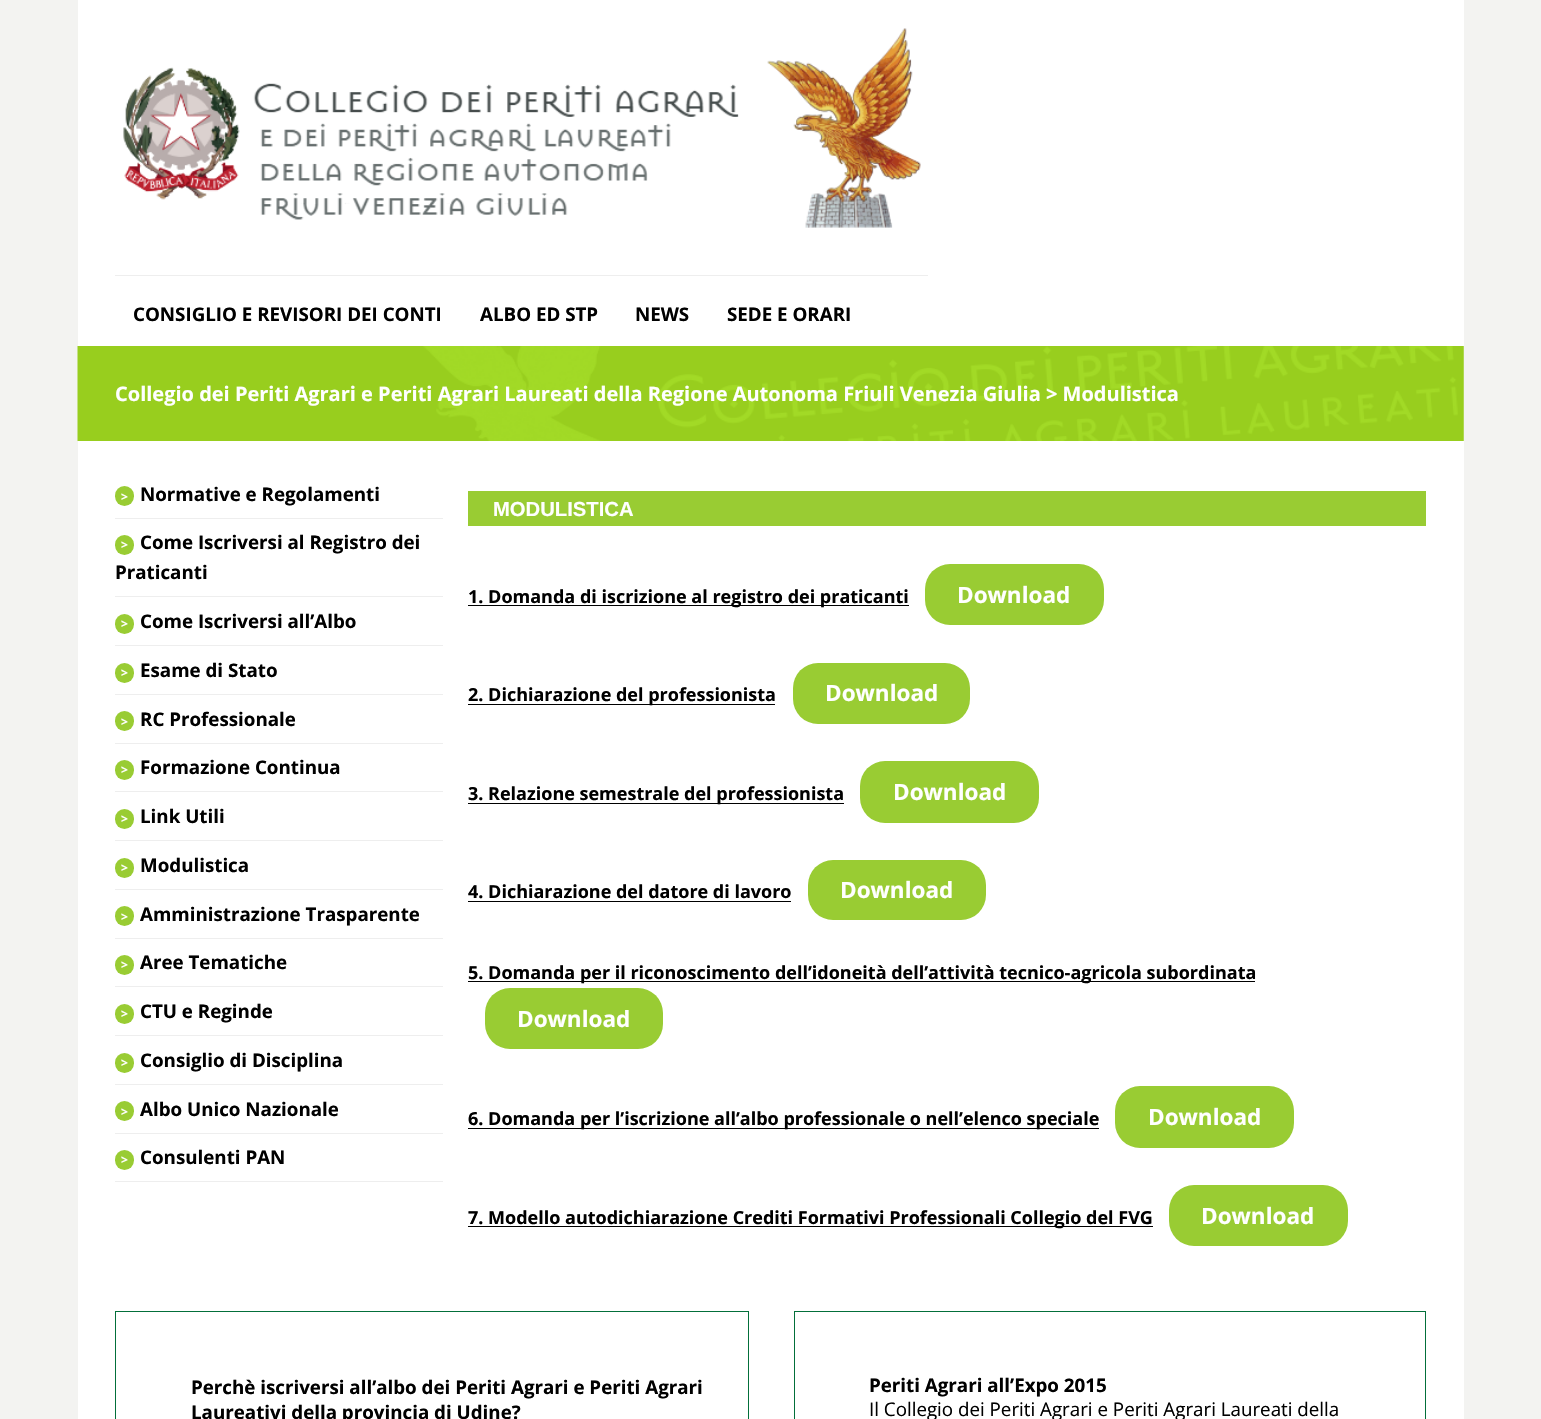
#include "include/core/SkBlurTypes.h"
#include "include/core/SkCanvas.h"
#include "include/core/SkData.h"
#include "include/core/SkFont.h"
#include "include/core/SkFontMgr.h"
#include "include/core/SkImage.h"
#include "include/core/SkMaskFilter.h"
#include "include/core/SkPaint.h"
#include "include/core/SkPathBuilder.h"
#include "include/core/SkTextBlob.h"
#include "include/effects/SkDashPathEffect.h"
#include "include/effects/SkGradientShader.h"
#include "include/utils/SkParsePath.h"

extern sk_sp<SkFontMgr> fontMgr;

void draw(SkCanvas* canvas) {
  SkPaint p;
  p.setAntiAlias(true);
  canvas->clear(SkColorSetRGB(243, 243, 241));
  p.setColor(SK_ColorWHITE);
  canvas->drawRect(SkRect::MakeLTRB(78, 0, 1464, 346), p);
  p.setColor(SkColorSetRGB(238, 238, 238));
  canvas->drawRect(SkRect::MakeLTRB(115, 275, 928, 276), p);
  canvas->drawImageRect(SkImages::DeferredFromEncodedData(SkData::MakeFromFileName("images/1.png")), SkRect::MakeLTRB(123, 28, 921, 228), SkSamplingOptions());
  canvas->drawImageRect(SkImages::DeferredFromEncodedData(SkData::MakeFromFileName("images/2.png")), SkRect::MakeLTRB(77, 346, 1464, 441), SkSamplingOptions());
  p.setColor(SK_ColorWHITE);
  canvas->drawRect(SkRect::MakeLTRB(78, 441, 1464, 1419), p);
  p.setColor(SkColorSetRGB(238, 238, 238));
  canvas->drawRect(SkRect::MakeLTRB(115, 518, 443, 519), p);
  p.setColor(SkColorSetRGB(153, 204, 51));
  canvas->drawRoundRect(SkRect::MakeLTRB(115, 486, 134, 506), 9.5f, 9.5f, p);
  p.setColor(SkColorSetRGB(238, 238, 238));
  canvas->drawRect(SkRect::MakeLTRB(115, 596, 443, 597), p);
  p.setColor(SkColorSetRGB(153, 204, 51));
  canvas->drawRoundRect(SkRect::MakeLTRB(115, 535, 134, 555), 9.5f, 9.5f, p);
  p.setColor(SkColorSetRGB(238, 238, 238));
  canvas->drawRect(SkRect::MakeLTRB(115, 645, 443, 646), p);
  p.setColor(SkColorSetRGB(153, 204, 51));
  canvas->drawRoundRect(SkRect::MakeLTRB(115, 614, 134, 634), 9.5f, 9.5f, p);
  p.setColor(SkColorSetRGB(238, 238, 238));
  canvas->drawRect(SkRect::MakeLTRB(115, 694, 443, 695), p);
  p.setColor(SkColorSetRGB(153, 204, 51));
  canvas->drawRoundRect(SkRect::MakeLTRB(115, 663, 134, 683), 9.5f, 9.5f, p);
  p.setColor(SkColorSetRGB(238, 238, 238));
  canvas->drawRect(SkRect::MakeLTRB(115, 743, 443, 744), p);
  p.setColor(SkColorSetRGB(153, 204, 51));
  canvas->drawRoundRect(SkRect::MakeLTRB(115, 711, 134, 731), 9.5f, 9.5f, p);
  p.setColor(SkColorSetRGB(238, 238, 238));
  canvas->drawRect(SkRect::MakeLTRB(115, 791, 443, 792), p);
  p.setColor(SkColorSetRGB(153, 204, 51));
  canvas->drawRoundRect(SkRect::MakeLTRB(115, 760, 134, 780), 9.5f, 9.5f, p);
  p.setColor(SkColorSetRGB(238, 238, 238));
  canvas->drawRect(SkRect::MakeLTRB(115, 840, 443, 841), p);
  p.setColor(SkColorSetRGB(153, 204, 51));
  canvas->drawRoundRect(SkRect::MakeLTRB(115, 809, 134, 829), 9.5f, 9.5f, p);
  p.setColor(SkColorSetRGB(238, 238, 238));
  canvas->drawRect(SkRect::MakeLTRB(115, 889, 443, 890), p);
  p.setColor(SkColorSetRGB(153, 204, 51));
  canvas->drawRoundRect(SkRect::MakeLTRB(115, 858, 134, 878), 9.5f, 9.5f, p);
  p.setColor(SkColorSetRGB(238, 238, 238));
  canvas->drawRect(SkRect::MakeLTRB(115, 938, 443, 939), p);
  p.setColor(SkColorSetRGB(153, 204, 51));
  canvas->drawRoundRect(SkRect::MakeLTRB(115, 906, 134, 926), 9.5f, 9.5f, p);
  p.setColor(SkColorSetRGB(238, 238, 238));
  canvas->drawRect(SkRect::MakeLTRB(115, 986, 443, 987), p);
  p.setColor(SkColorSetRGB(153, 204, 51));
  canvas->drawRoundRect(SkRect::MakeLTRB(115, 955, 134, 975), 9.5f, 9.5f, p);
  p.setColor(SkColorSetRGB(238, 238, 238));
  canvas->drawRect(SkRect::MakeLTRB(115, 1035, 443, 1036), p);
  p.setColor(SkColorSetRGB(153, 204, 51));
  canvas->drawRoundRect(SkRect::MakeLTRB(115, 1004, 134, 1024), 9.5f, 9.5f, p);
  p.setColor(SkColorSetRGB(238, 238, 238));
  canvas->drawRect(SkRect::MakeLTRB(115, 1084, 443, 1085), p);
  p.setColor(SkColorSetRGB(153, 204, 51));
  canvas->drawRoundRect(SkRect::MakeLTRB(115, 1053, 134, 1073), 9.5f, 9.5f, p);
  p.setColor(SkColorSetRGB(238, 238, 238));
  canvas->drawRect(SkRect::MakeLTRB(115, 1133, 443, 1134), p);
  p.setColor(SkColorSetRGB(153, 204, 51));
  canvas->drawRoundRect(SkRect::MakeLTRB(115, 1101, 134, 1121), 9.5f, 9.5f, p);
  p.setColor(SkColorSetRGB(238, 238, 238));
  canvas->drawRect(SkRect::MakeLTRB(115, 1181, 443, 1182), p);
  p.setColor(SkColorSetRGB(153, 204, 51));
  canvas->drawRoundRect(SkRect::MakeLTRB(115, 1150, 134, 1170), 9.5f, 9.5f, p);
  canvas->drawRect(SkRect::MakeLTRB(468, 491, 1426, 526), p);
  p.setColor(SK_ColorBLACK);
  canvas->drawRect(SkRect::MakeLTRB(468, 605, 909, 606), p);
  p.setColor(SkColorSetRGB(153, 204, 51));
  canvas->drawRoundRect(SkRect::MakeLTRB(925, 564, 1104, 625), 25, 25, p);
  p.setColor(SK_ColorBLACK);
  canvas->drawRect(SkRect::MakeLTRB(468, 704, 775, 705), p);
  p.setColor(SkColorSetRGB(153, 204, 51));
  canvas->drawRoundRect(SkRect::MakeLTRB(793, 663, 970, 724), 25, 25, p);
  p.setColor(SK_ColorBLACK);
  canvas->drawRect(SkRect::MakeLTRB(468, 803, 844, 804), p);
  p.setColor(SkColorSetRGB(153, 204, 51));
  canvas->drawRoundRect(SkRect::MakeLTRB(860, 761, 1039, 823), 25, 25, p);
  p.setColor(SK_ColorBLACK);
  canvas->drawRect(SkRect::MakeLTRB(468, 901, 791, 902), p);
  p.setColor(SkColorSetRGB(153, 204, 51));
  canvas->drawRoundRect(SkRect::MakeLTRB(808, 860, 986, 920), 25, 25, p);
  p.setColor(SK_ColorBLACK);
  canvas->drawRect(SkRect::MakeLTRB(468, 981, 1255, 982), p);
  p.setColor(SkColorSetRGB(153, 204, 51));
  canvas->drawRoundRect(SkRect::MakeLTRB(485, 988, 663, 1049), 25, 25, p);
  p.setColor(SK_ColorBLACK);
  canvas->drawRect(SkRect::MakeLTRB(468, 1128, 1099, 1129), p);
  p.setColor(SkColorSetRGB(153, 204, 51));
  canvas->drawRoundRect(SkRect::MakeLTRB(1115, 1086, 1294, 1148), 25, 25, p);
  p.setColor(SK_ColorBLACK);
  canvas->drawRect(SkRect::MakeLTRB(468, 1226, 1153, 1227), p);
  p.setColor(SkColorSetRGB(153, 204, 51));
  canvas->drawRoundRect(SkRect::MakeLTRB(1169, 1185, 1348, 1246), 25, 25, p);
  p.setStyle(SkPaint::kStroke_Style);
  p.setStrokeWidth(1);
  p.setColor(SkColorSetRGB(3, 111, 58));
  canvas->drawRect(SkRect::MakeLTRB(115.5f, 1311.5f, 748.5f, 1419.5f), p);
  canvas->drawRect(SkRect::MakeLTRB(794.5f, 1311.5f, 1425.5f, 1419.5f), p);
  SkFont font1(fontMgr->matchFamilyStyle("Open Sans", SkFontStyle::Bold()), 18.75f);
  font1.setSubpixel(true);
  p.setStyle(SkPaint::kFill_Style);
  p.setColor(SK_ColorBLACK);
  canvas->drawString("CONSIGLIO E REVISORI DEI CONTI", 133, 321, font1, p);
  canvas->drawString("ALBO ED STP", 480, 321, font1, p);
  canvas->drawString("NEWS", 635, 321, font1, p);
  canvas->drawString("SEDE E ORARI", 727, 321, font1, p);
  SkFont font2(fontMgr->matchFamilyStyle("Open Sans", SkFontStyle::Bold()), 20);
  font2.setSubpixel(true);
  p.setColor(SK_ColorWHITE);
  canvas->drawString("Collegio dei Periti Agrari e Periti Agrari Laureati della Regione Autonoma Friuli Venezia Giulia > Modulistica", 115, 401, font2, p);
  SkFont font3(fontMgr->matchFamilyStyle("Open Sans", SkFontStyle::Bold()), 12);
  font3.setSubpixel(true);
  canvas->drawString(">", 121, 501, font3, p);
  p.setColor(SK_ColorBLACK);
  canvas->drawString("Normative e Regolamenti", 140, 501, font1, p);
  p.setColor(SK_ColorWHITE);
  canvas->drawString(">", 121, 549, font3, p);
  p.setColor(SK_ColorBLACK);
  canvas->drawString("Come Iscriversi al Registro dei", 140, 549, font1, p);
  canvas->drawString("Praticanti", 115, 579, font1, p);
  p.setColor(SK_ColorWHITE);
  canvas->drawString(">", 121, 628, font3, p);
  p.setColor(SK_ColorBLACK);
  canvas->drawString("Come Iscriversi all’Albo", 140, 628, font1, p);
  p.setColor(SK_ColorWHITE);
  canvas->drawString(">", 121, 677, font3, p);
  p.setColor(SK_ColorBLACK);
  canvas->drawString("Esame di Stato", 140, 677, font1, p);
  p.setColor(SK_ColorWHITE);
  canvas->drawString(">", 121, 726, font3, p);
  p.setColor(SK_ColorBLACK);
  canvas->drawString("RC Professionale", 140, 726, font1, p);
  p.setColor(SK_ColorWHITE);
  canvas->drawString(">", 121, 774, font3, p);
  p.setColor(SK_ColorBLACK);
  canvas->drawString("Formazione Continua", 140, 774, font1, p);
  p.setColor(SK_ColorWHITE);
  canvas->drawString(">", 121, 823, font3, p);
  p.setColor(SK_ColorBLACK);
  canvas->drawString("Link Utili", 140, 823, font1, p);
  p.setColor(SK_ColorWHITE);
  canvas->drawString(">", 121, 872, font3, p);
  p.setColor(SK_ColorBLACK);
  canvas->drawString("Modulistica", 140, 872, font1, p);
  p.setColor(SK_ColorWHITE);
  canvas->drawString(">", 121, 921, font3, p);
  p.setColor(SK_ColorBLACK);
  canvas->drawString("Amministrazione Trasparente", 140, 921, font1, p);
  p.setColor(SK_ColorWHITE);
  canvas->drawString(">", 121, 969, font3, p);
  p.setColor(SK_ColorBLACK);
  canvas->drawString("Aree Tematiche", 140, 969, font1, p);
  p.setColor(SK_ColorWHITE);
  canvas->drawString(">", 121, 1018, font3, p);
  p.setColor(SK_ColorBLACK);
  canvas->drawString("CTU e Reginde", 140, 1018, font1, p);
  p.setColor(SK_ColorWHITE);
  canvas->drawString(">", 121, 1067, font3, p);
  p.setColor(SK_ColorBLACK);
  canvas->drawString("Consiglio di Disciplina", 140, 1067, font1, p);
  p.setColor(SK_ColorWHITE);
  canvas->drawString(">", 121, 1116, font3, p);
  p.setColor(SK_ColorBLACK);
  canvas->drawString("Albo Unico Nazionale", 140, 1116, font1, p);
  p.setColor(SK_ColorWHITE);
  canvas->drawString(">", 121, 1164, font3, p);
  p.setColor(SK_ColorBLACK);
  canvas->drawString("Consulenti PAN", 140, 1164, font1, p);
  SkFont font4(fontMgr->matchFamilyStyle("Liberation Sans", SkFontStyle::Bold()), 20.25f);
  font4.setSubpixel(true);
  p.setColor(SK_ColorWHITE);
  canvas->drawString("MODULISTICA", 493, 516, font4, p);
  SkFont font5(fontMgr->matchFamilyStyle("Open Sans", SkFontStyle::Bold()), 18);
  font5.setSubpixel(true);
  p.setColor(SK_ColorBLACK);
  canvas->drawString("1. Domanda di iscrizione al registro dei praticanti", 468, 603, font5, p);
  SkFont font6(fontMgr->matchFamilyStyle("Open Sans", SkFontStyle::Bold()), 22.5f);
  font6.setSubpixel(true);
  p.setColor(SK_ColorWHITE);
  canvas->drawString("Download", 957, 603, font6, p);
  p.setColor(SK_ColorBLACK);
  canvas->drawString("2. Dichiarazione del professionista", 468, 701, font5, p);
  p.setColor(SK_ColorWHITE);
  canvas->drawString("Download", 825, 701, font6, p);
  p.setColor(SK_ColorBLACK);
  canvas->drawString("3. Relazione semestrale del professionista", 468, 800, font5, p);
  p.setColor(SK_ColorWHITE);
  canvas->drawString("Download", 893, 800, font6, p);
  p.setColor(SK_ColorBLACK);
  canvas->drawString("4. Dichiarazione del datore di lavoro", 468, 898, font5, p);
  p.setColor(SK_ColorWHITE);
  canvas->drawString("Download", 840, 898, font6, p);
  p.setColor(SK_ColorBLACK);
  canvas->drawString("5. Domanda per il riconoscimento dell’idoneità dell’attività tecnico-agricola subordinata", 468, 979, font5, p);
  p.setColor(SK_ColorWHITE);
  canvas->drawString("Download", 517, 1027, font6, p);
  p.setColor(SK_ColorBLACK);
  canvas->drawString("6. Domanda per l’iscrizione all’albo professionale o nell’elenco speciale", 468, 1125, font5, p);
  p.setColor(SK_ColorWHITE);
  canvas->drawString("Download", 1148, 1125, font6, p);
  p.setColor(SK_ColorBLACK);
  canvas->drawString("7. Modello autodichiarazione Crediti Formativi Professionali Collegio del FVG", 468, 1224, font5, p);
  p.setColor(SK_ColorWHITE);
  canvas->drawString("Download", 1201, 1224, font6, p);
  p.setColor(SK_ColorBLACK);
  canvas->drawString("Perchè iscriversi all’albo dei Periti Agrari e Periti Agrari", 191, 1394, font1, p);
  canvas->drawString("Laureativi della provincia di Udine?", 191, 1419, font1, p);
  canvas->drawString("Periti Agrari all’Expo 2015", 869, 1392, font1, p);
  SkFont font7(fontMgr->matchFamilyStyle("Open Sans", SkFontStyle::Normal()), 18.75f);
  font7.setSubpixel(true);
  canvas->drawString("Il Collegio dei Periti Agrari e Periti Agrari Laureati della", 869, 1416, font7, p);
}
